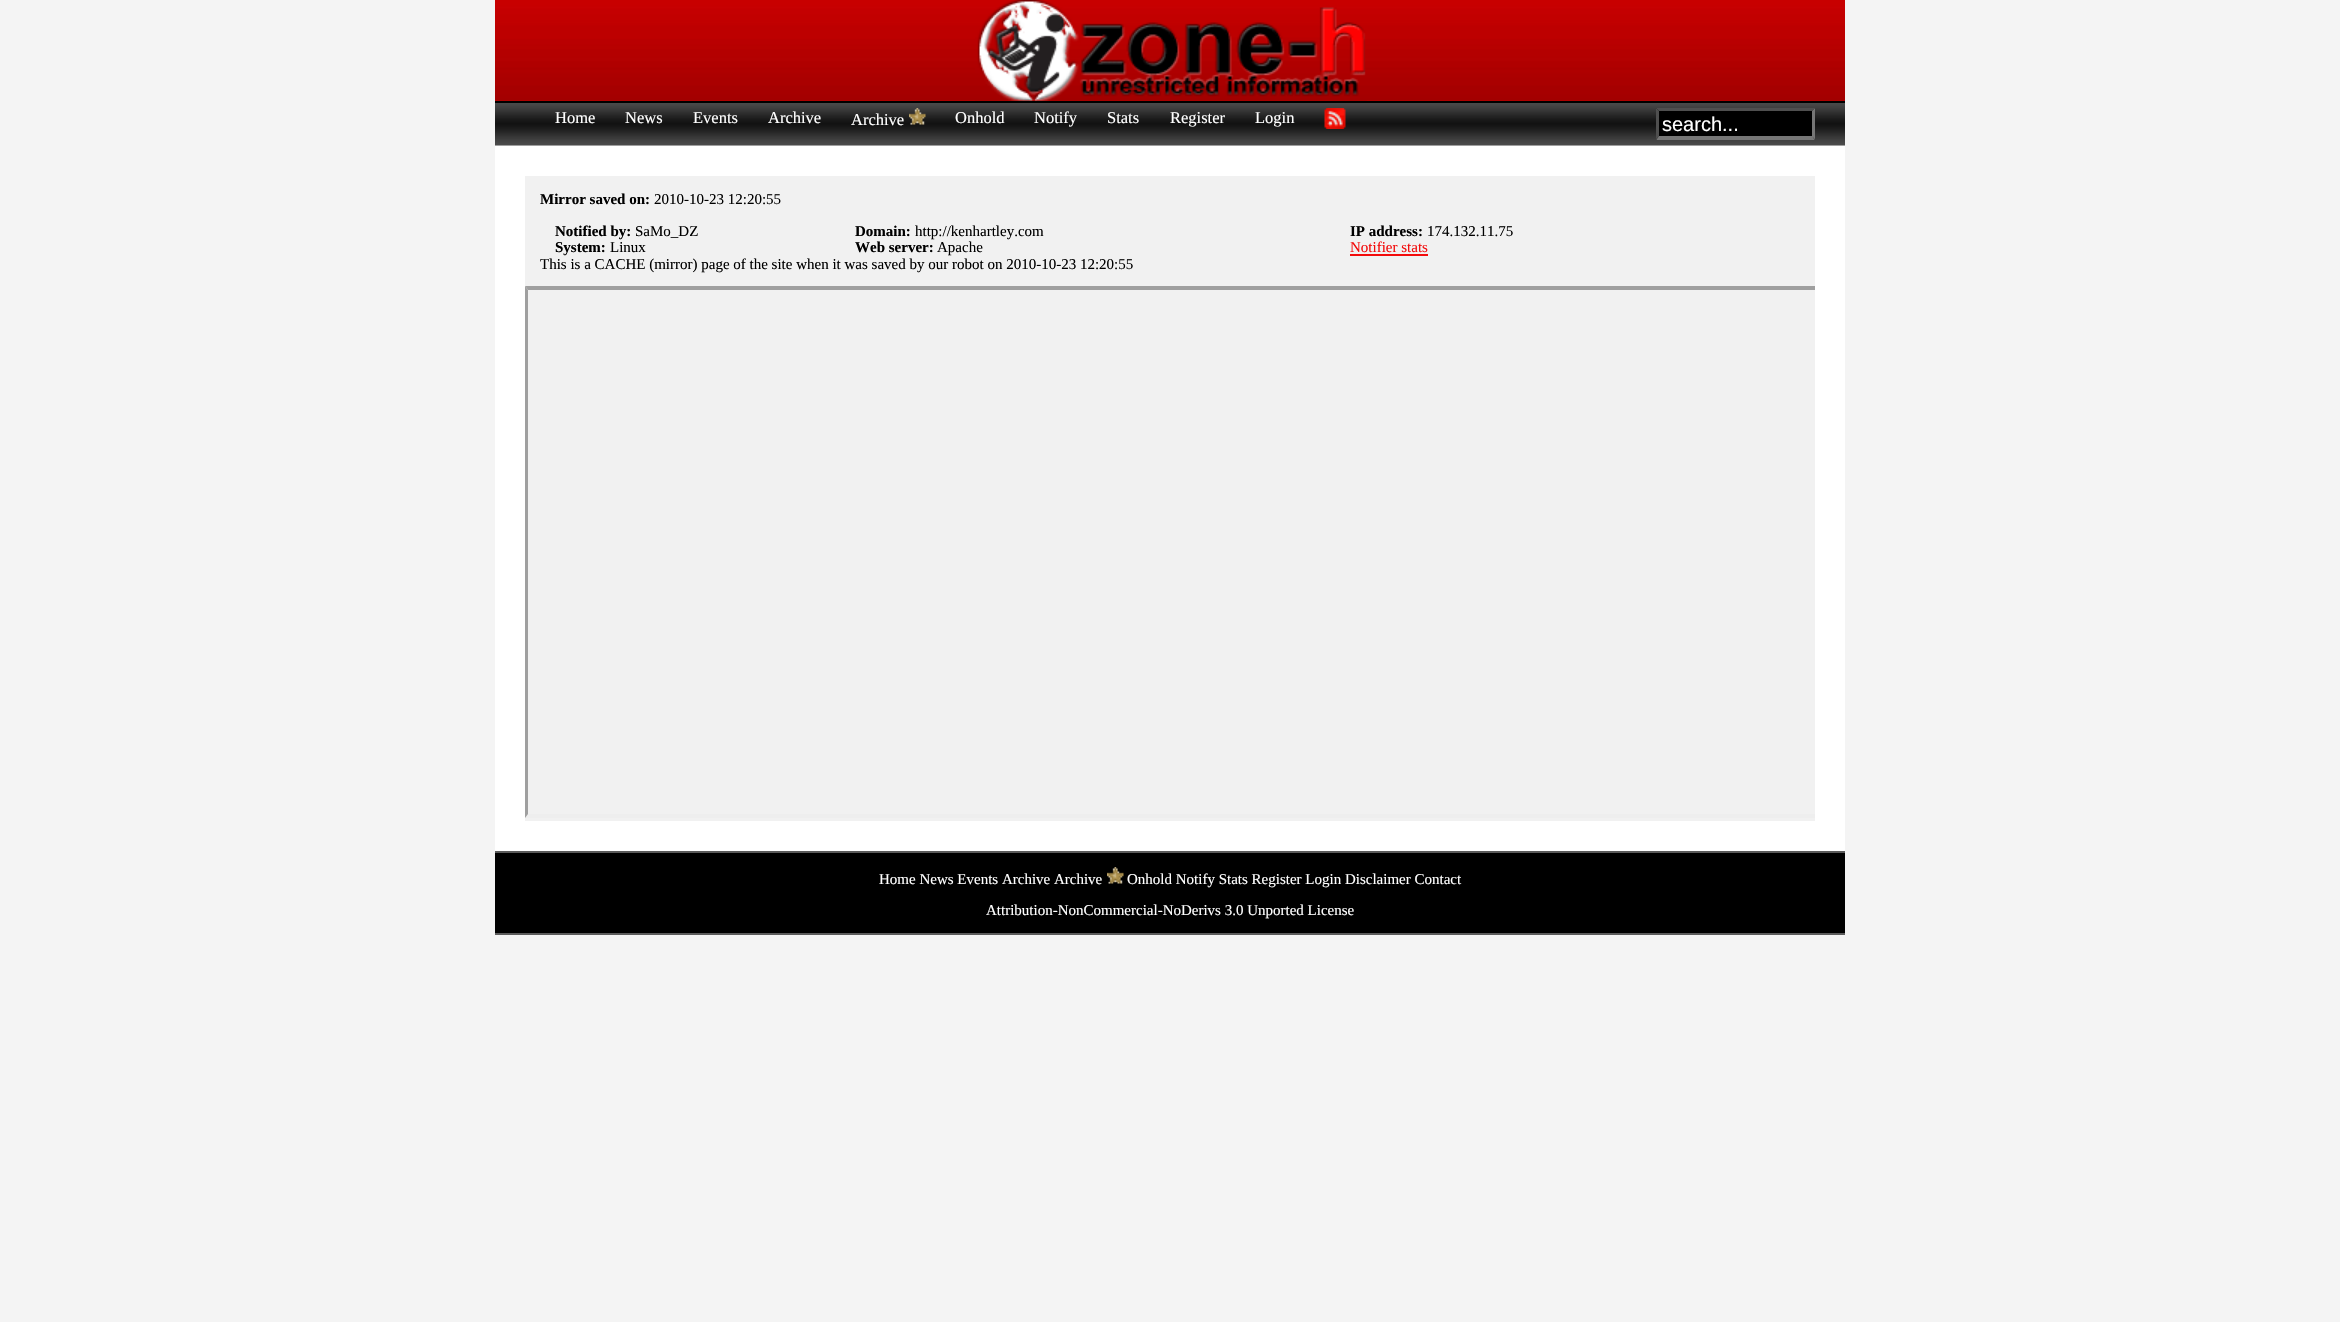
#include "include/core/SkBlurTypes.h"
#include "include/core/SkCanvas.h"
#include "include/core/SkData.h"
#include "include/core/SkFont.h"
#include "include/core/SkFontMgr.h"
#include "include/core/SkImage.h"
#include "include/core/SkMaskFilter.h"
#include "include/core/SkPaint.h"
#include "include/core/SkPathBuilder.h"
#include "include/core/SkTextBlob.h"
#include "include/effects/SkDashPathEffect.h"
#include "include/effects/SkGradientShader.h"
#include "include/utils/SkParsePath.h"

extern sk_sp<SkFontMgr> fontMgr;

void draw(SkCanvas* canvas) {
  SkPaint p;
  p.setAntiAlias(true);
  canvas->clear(SkColorSetRGB(244, 244, 244));
  p.setColor(SkColorSetRGB(189, 0, 0));
  canvas->drawRect(SkRect::MakeLTRB(495, 100, 1845, 101), p);
  canvas->drawImageRect(SkImages::DeferredFromEncodedData(SkData::MakeFromFileName("images/1.png")), SkRect::MakeLTRB(495, 0, 1845, 101), SkSamplingOptions());
  canvas->drawImageRect(SkImages::DeferredFromEncodedData(SkData::MakeFromFileName("images/2.png")), SkRect::MakeLTRB(975, 0, 1367, 101), SkSamplingOptions());
  canvas->drawImageRect(SkImages::DeferredFromEncodedData(SkData::MakeFromFileName("images/3.png")), SkRect::MakeLTRB(495, 103, 1845, 146), SkSamplingOptions());
  p.setColor(SK_ColorBLACK);
  canvas->drawRect(SkRect::MakeLTRB(495, 101, 1845, 103), p);
  canvas->drawImageRect(SkImages::DeferredFromEncodedData(SkData::MakeFromFileName("images/4.png")), SkRect::MakeLTRB(909, 108, 926, 125), SkSamplingOptions());
  canvas->drawImageRect(SkImages::DeferredFromEncodedData(SkData::MakeFromFileName("images/5.png")), SkRect::MakeLTRB(1324, 108, 1346, 129), SkSamplingOptions());
  canvas->drawRect(SkRect::MakeLTRB(1656, 108, 1815, 140), p);
  p.setColor(SkColorSetRGB(79, 79, 79));
  canvas->drawPath(SkPathBuilder().moveTo(1656, 108).lineTo(1815, 108).lineTo(1812, 111).lineTo(1659, 111).close().detach(), p);
  p.setColor(SkColorSetRGB(118, 118, 118));
  canvas->drawPath(SkPathBuilder().moveTo(1815, 108).lineTo(1815, 139.5f).lineTo(1812, 136.5f).lineTo(1812, 111).close().detach(), p);
  canvas->drawPath(SkPathBuilder().moveTo(1815, 140).lineTo(1656, 140).lineTo(1659, 136).lineTo(1812, 136).close().detach(), p);
  p.setColor(SkColorSetRGB(79, 79, 79));
  canvas->drawPath(SkPathBuilder().moveTo(1656, 139.5f).lineTo(1656, 108).lineTo(1659, 111).lineTo(1659, 136.5f).close().detach(), p);
  p.setColor(SK_ColorWHITE);
  canvas->drawRect(SkRect::MakeLTRB(495, 146, 1845, 851), p);
  p.setColor(SkColorSetRGB(241, 241, 241));
  canvas->drawRect(SkRect::MakeLTRB(525, 176, 1815, 821), p);
  p.setColor(SkColorSetRGB(243, 11, 11));
  canvas->drawRect(SkRect::MakeLTRB(1350, 254, 1428, 256), p);
  canvas->save();
  canvas->clipRect(SkRect::MakeLTRB(525, 176, 1815, 821));
  p.setColor(SkColorSetRGB(159, 159, 159));
  canvas->drawPath(SkPathBuilder().moveTo(525, 286).lineTo(1821, 286).lineTo(1818, 290).lineTo(528, 290).close().detach(), p);
  p.setColor(SkColorSetRGB(238, 238, 238));
  canvas->drawPath(SkPathBuilder().moveTo(1821, 818).lineTo(525, 818).lineTo(528, 814).lineTo(1818, 814).close().detach(), p);
  canvas->restore();
  p.setColor(SkColorSetRGB(159, 159, 159));
  canvas->drawPath(SkPathBuilder().moveTo(525, 818).lineTo(525, 286).lineTo(528, 290).lineTo(528, 814).close().detach(), p);
  p.setColor(SK_ColorBLACK);
  canvas->drawRect(SkRect::MakeLTRB(495, 853, 1845, 933), p);
  p.setColor(SkColorSetRGB(91, 91, 91));
  canvas->drawRect(SkRect::MakeLTRB(495, 851, 1845, 853), p);
  canvas->drawRect(SkRect::MakeLTRB(495, 933, 1845, 935), p);
  canvas->drawImageRect(SkImages::DeferredFromEncodedData(SkData::MakeFromFileName("images/6.png")), SkRect::MakeLTRB(1107, 867, 1124, 884), SkSamplingOptions());
  SkFont font1(fontMgr->matchFamilyStyle("Liberation Serif", SkFontStyle::Normal()), 16.5f);
  font1.setSubpixel(true);
  p.setColor(SK_ColorWHITE);
  canvas->drawString("Home", 555, 123, font1, p);
  canvas->drawString("News", 625, 123, font1, p);
  canvas->drawString("Events", 693, 123, font1, p);
  canvas->drawString("Archive", 768, 123, font1, p);
  canvas->drawString("Archive", 851, 125, font1, p);
  canvas->drawString("Onhold", 955, 123, font1, p);
  canvas->drawString("Notify", 1034, 123, font1, p);
  canvas->drawString("Stats", 1107, 123, font1, p);
  canvas->drawString("Register", 1170, 123, font1, p);
  canvas->drawString("Login", 1255, 123, font1, p);
  SkFont font2(fontMgr->matchFamilyStyle("Liberation Sans", SkFontStyle::Normal()), 20);
  font2.setSubpixel(true);
  canvas->drawString("search...", 1662, 131, font2, p);
  SkFont font3(fontMgr->matchFamilyStyle("Liberation Serif", SkFontStyle::Bold()), 15);
  font3.setSubpixel(true);
  p.setColor(SK_ColorBLACK);
  canvas->drawString("Mirror saved on:", 540, 204, font3, p);
  SkFont font4(fontMgr->matchFamilyStyle("Liberation Serif", SkFontStyle::Normal()), 15);
  font4.setSubpixel(true);
  canvas->drawString("2010-10-23 12:20:55", 654, 204, font4, p);
  canvas->drawString("Notified by:", 555, 236, font3, p);
  canvas->drawString("SaMo_DZ", 635, 236, font4, p);
  canvas->drawString("Domain:", 855, 236, font3, p);
  canvas->drawString("http://kenhartley.com", 915, 236, font4, p);
  canvas->drawString("IP address:", 1350, 236, font3, p);
  canvas->drawString("174.132.11.75", 1427, 236, font4, p);
  canvas->drawString("System:", 555, 252, font3, p);
  canvas->drawString("Linux", 610, 252, font4, p);
  canvas->drawString("Web server:", 855, 252, font3, p);
  canvas->drawString("Apache", 937, 252, font4, p);
  p.setColor(SkColorSetRGB(243, 11, 11));
  canvas->drawString("Notifier stats", 1350, 252, font4, p);
  p.setColor(SK_ColorBLACK);
  canvas->drawString("This is a CACHE (mirror) page of the site when it was saved by our robot on 2010-10-23 12:20:55", 540, 269, font4, p);
  p.setColor(SK_ColorWHITE);
  canvas->drawString("Home News Events Archive Archive", 879, 884, font4, p);
  canvas->drawString("Onhold Notify Stats Register Login Disclaimer Contact", 1127, 884, font4, p);
  canvas->drawString("Attribution-NonCommercial-NoDerivs 3.0 Unported License", 986, 915, font4, p);
}
